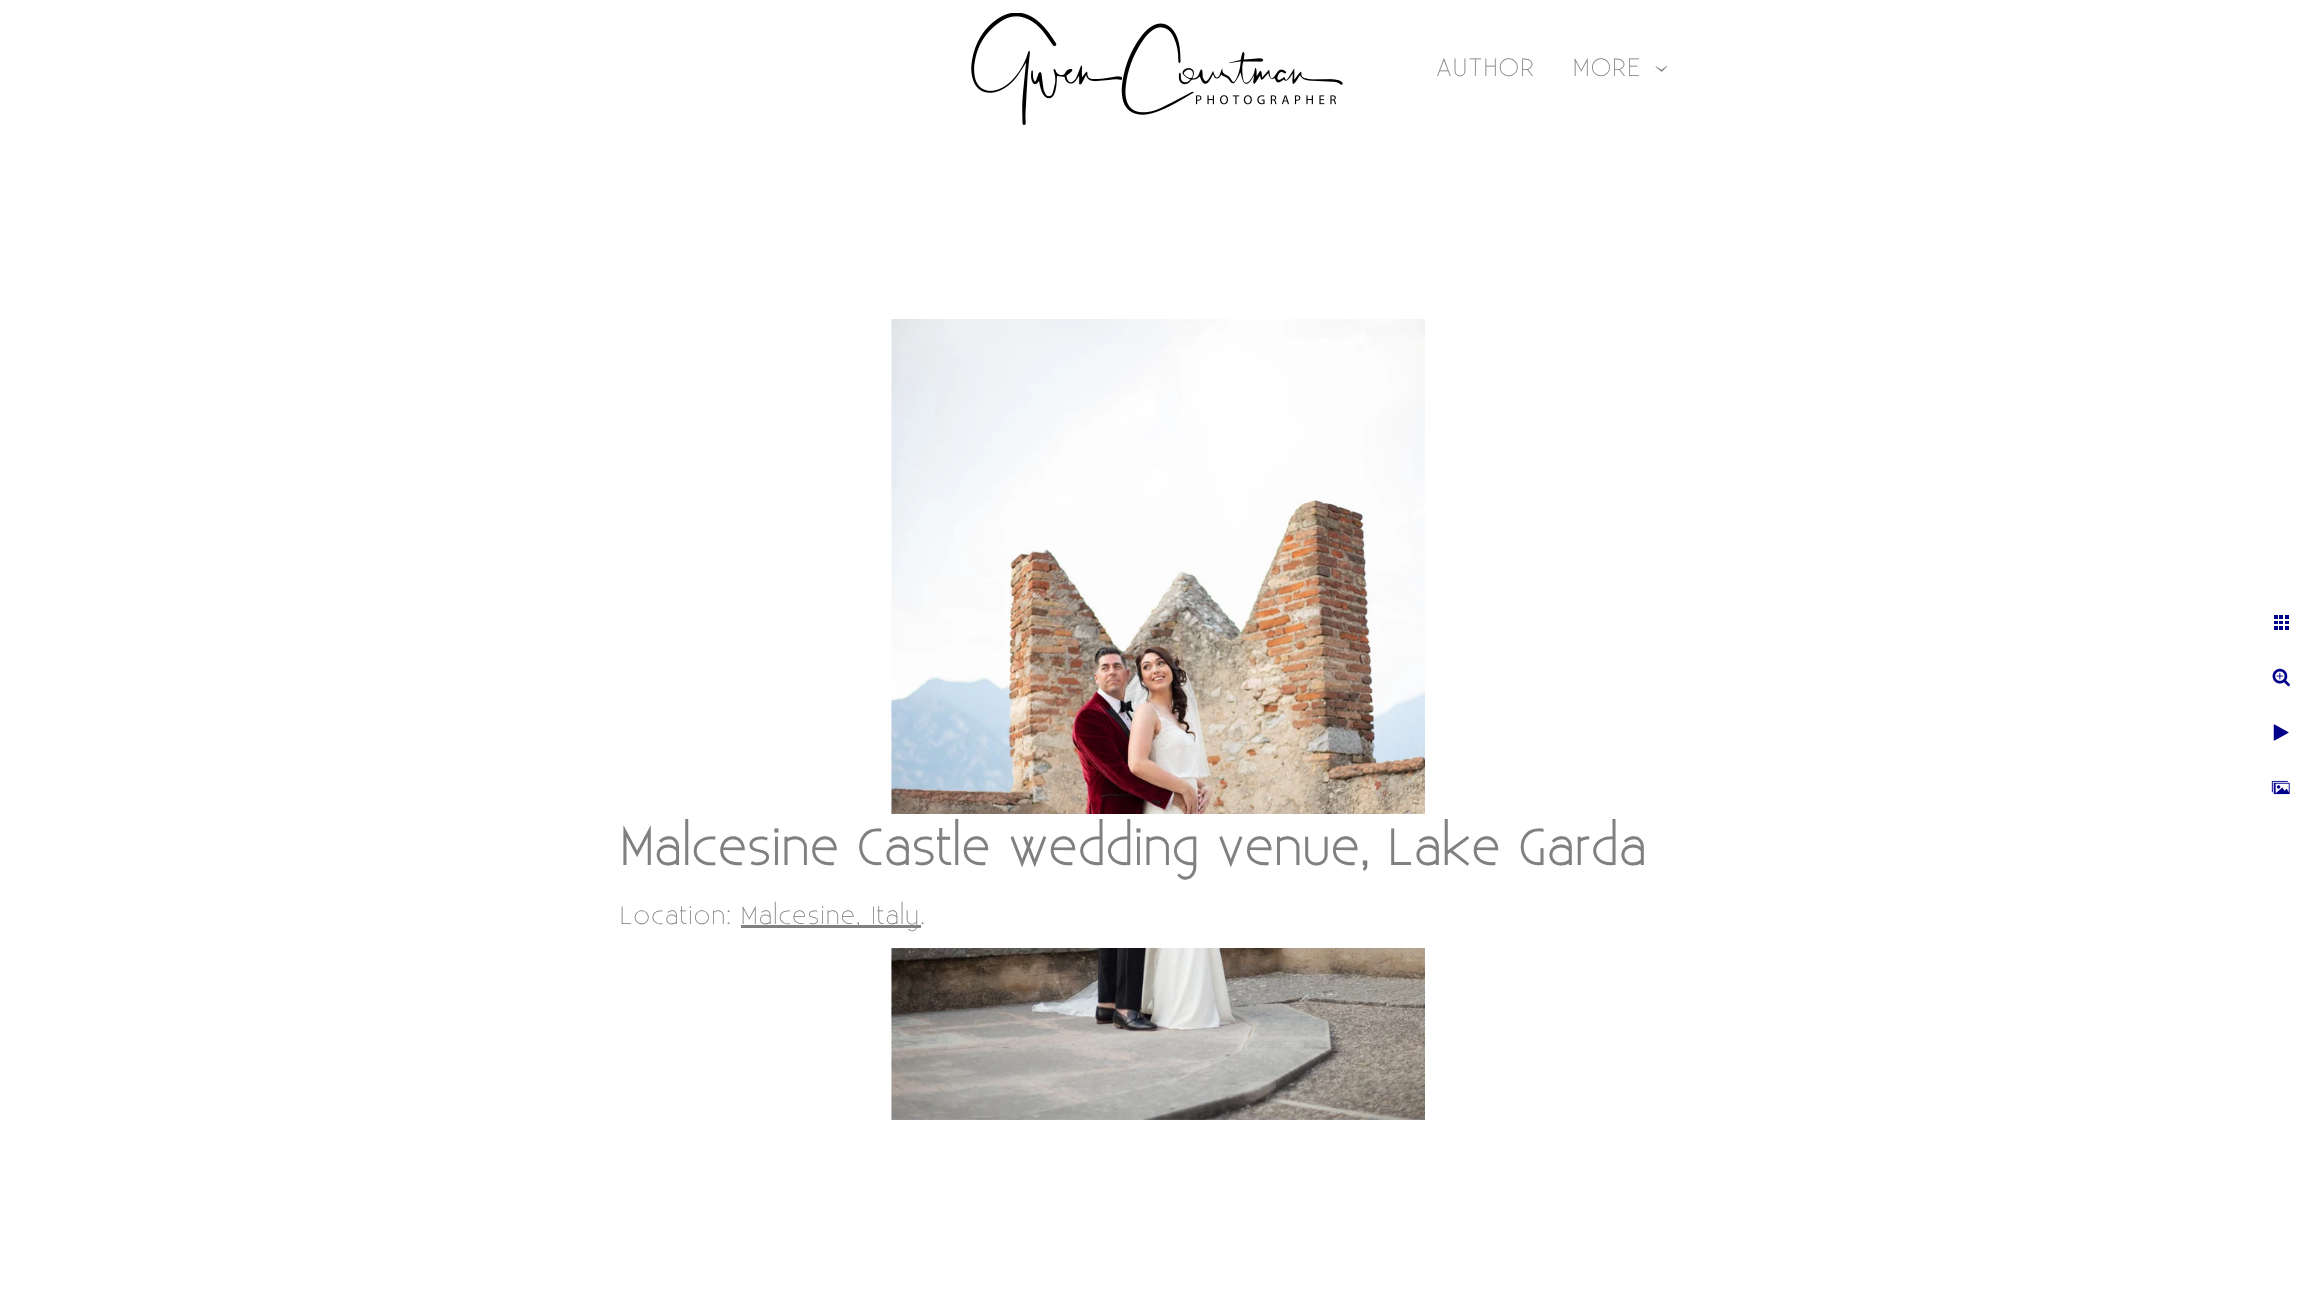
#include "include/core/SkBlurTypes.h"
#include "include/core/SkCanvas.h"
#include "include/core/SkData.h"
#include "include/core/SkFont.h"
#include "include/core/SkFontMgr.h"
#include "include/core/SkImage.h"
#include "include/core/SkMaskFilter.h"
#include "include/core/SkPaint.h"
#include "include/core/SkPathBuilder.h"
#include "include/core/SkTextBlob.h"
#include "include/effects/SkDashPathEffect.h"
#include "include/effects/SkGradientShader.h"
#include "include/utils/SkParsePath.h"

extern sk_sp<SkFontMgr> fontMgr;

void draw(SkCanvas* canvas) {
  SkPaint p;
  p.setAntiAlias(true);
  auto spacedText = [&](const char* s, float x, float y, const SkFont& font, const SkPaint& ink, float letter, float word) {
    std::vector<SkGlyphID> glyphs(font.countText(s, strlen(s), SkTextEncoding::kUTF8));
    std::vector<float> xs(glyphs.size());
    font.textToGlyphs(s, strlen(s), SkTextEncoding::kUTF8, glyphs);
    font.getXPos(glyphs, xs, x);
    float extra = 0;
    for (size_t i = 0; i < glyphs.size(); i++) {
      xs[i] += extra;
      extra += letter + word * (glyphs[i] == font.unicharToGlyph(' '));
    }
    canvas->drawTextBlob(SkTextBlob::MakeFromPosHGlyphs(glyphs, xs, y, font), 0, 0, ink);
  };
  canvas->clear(SK_ColorWHITE);
  canvas->drawImageRect(SkImages::DeferredFromEncodedData(SkData::MakeFromFileName("images/1.png")), SkRect::MakeLTRB(971, 13, 1343, 125), SkSamplingOptions());
  canvas->drawImageRect(SkImages::DeferredFromEncodedData(SkData::MakeFromFileName("images/2.png")), SkRect::MakeLTRB(1655, 65, 1668, 72), SkSamplingOptions());
  canvas->drawImageRect(SkImages::DeferredFromEncodedData(SkData::MakeFromFileName("images/3.png")), SkRect::MakeLTRB(891, 319, 1425, 1120), SkSamplingOptions());
  canvas->drawImageRect(SkImages::DeferredFromEncodedData(SkData::MakeFromFileName("images/4.png")), SkRect::MakeLTRB(2274, 615, 2289, 630), SkSamplingOptions());
  canvas->drawImageRect(SkImages::DeferredFromEncodedData(SkData::MakeFromFileName("images/5.png")), SkRect::MakeLTRB(2272, 668, 2290, 687), SkSamplingOptions());
  canvas->drawImageRect(SkImages::DeferredFromEncodedData(SkData::MakeFromFileName("images/6.png")), SkRect::MakeLTRB(2273, 724, 2289, 741), SkSamplingOptions());
  canvas->drawImageRect(SkImages::DeferredFromEncodedData(SkData::MakeFromFileName("images/7.png")), SkRect::MakeLTRB(2271, 780, 2290, 795), SkSamplingOptions());
  p.setColor(SK_ColorWHITE);
  canvas->drawRect(SkRect::MakeLTRB(891, 814, 1425, 948), p);
  p.setColor(SkColorSetRGB(128, 128, 128));
  canvas->drawRect(SkRect::MakeLTRB(741, 925, 921, 928), p);
  SkFont font1(fontMgr->matchFamilyStyle("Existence", SkFontStyle(300, SkFontStyle::kNormal_Width, SkFontStyle::kUpright_Slant)), 25);
  font1.setSubpixel(true);
  spacedText("AUTHOR", 1436, 76, font1, p, 1.25f, 0);
  spacedText("MORE", 1573, 76, font1, p, 1.25f, 0);
  SkFont font2(fontMgr->matchFamilyStyle("Existence", SkFontStyle::Bold()), 50);
  font2.setSubpixel(true);
  spacedText("Malcesine Castle wedding venue, Lake Garda", 620, 865, font2, p, 1.25f, 0);
  spacedText("Location:", 620, 924, font1, p, 1.25f, 0);
  spacedText("Malcesine, Italy.", 741, 924, font1, p, 1.25f, 0);
}
